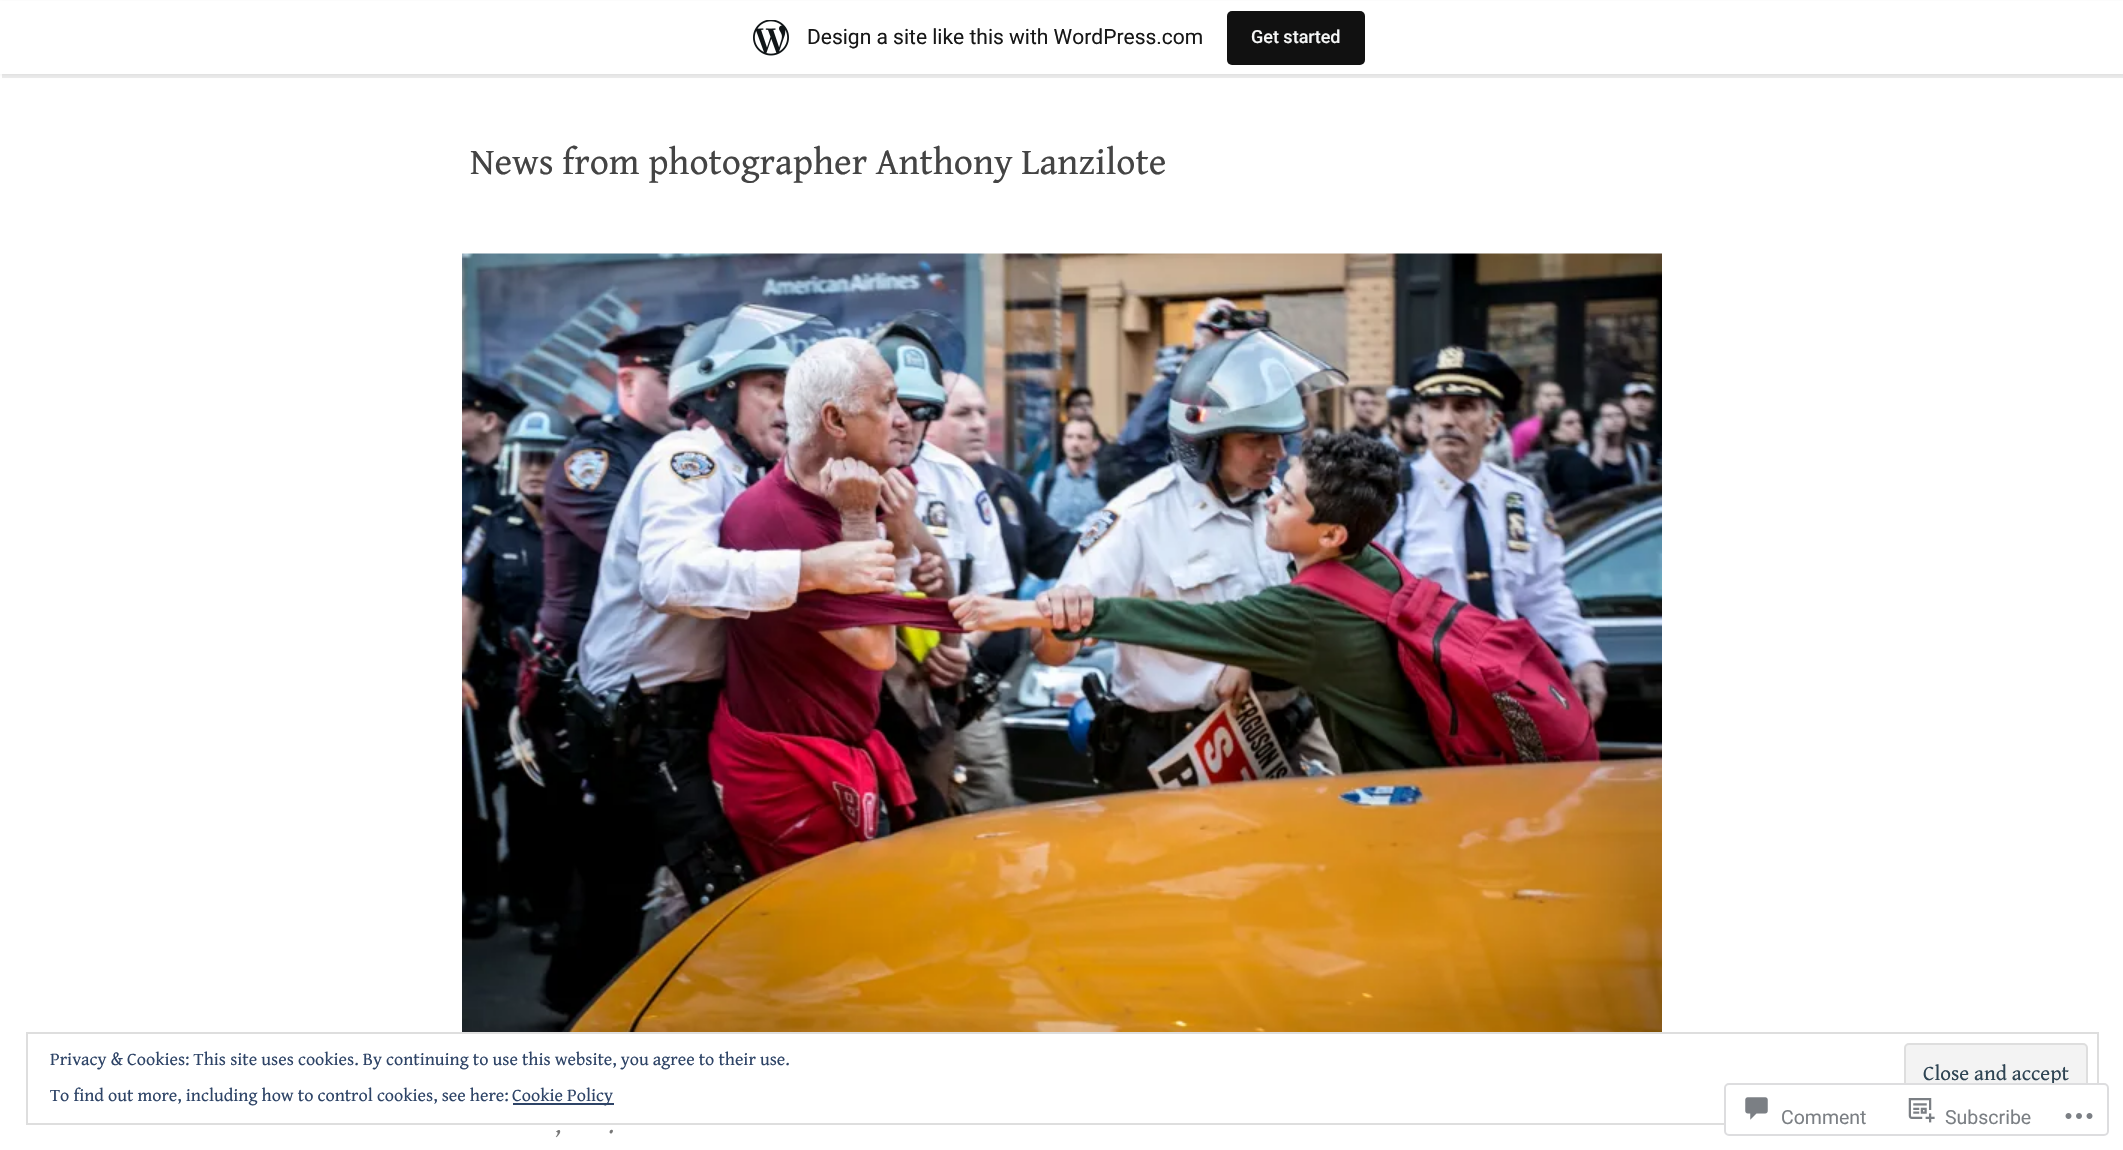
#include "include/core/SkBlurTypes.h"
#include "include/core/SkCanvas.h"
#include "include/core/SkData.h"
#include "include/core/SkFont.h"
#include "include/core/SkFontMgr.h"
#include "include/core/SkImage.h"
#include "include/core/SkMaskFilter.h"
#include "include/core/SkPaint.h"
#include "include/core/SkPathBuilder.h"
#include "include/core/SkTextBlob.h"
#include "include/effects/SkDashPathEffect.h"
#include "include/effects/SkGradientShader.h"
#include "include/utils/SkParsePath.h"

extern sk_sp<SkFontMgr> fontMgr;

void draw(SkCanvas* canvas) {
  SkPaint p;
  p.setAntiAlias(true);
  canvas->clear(SK_ColorWHITE);
  p.setColor(SkColorSetARGB(13, 0, 0, 0));
  p.setMaskFilter(SkMaskFilter::MakeBlur(kNormal_SkBlurStyle, 1.5f));
  canvas->drawRect(SkRect::MakeLTRB(0, 2, 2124, 75), p);
  p.setMaskFilter(nullptr);
  p.setColor(SkColorSetARGB(20, 0, 0, 0));
  canvas->drawPath(SkPathBuilder().moveTo(2, 74).lineTo(2, 78).lineTo(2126, 78).lineTo(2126, 5).lineTo(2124, 5).lineTo(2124, 74).close().detach(), p);
  p.setColor(SK_ColorWHITE);
  canvas->drawRect(SkRect::MakeLTRB(0, 1, 2123, 74), p);
  canvas->drawImageRect(SkImages::DeferredFromEncodedData(SkData::MakeFromFileName("images/1.png")), SkRect::MakeLTRB(753, 20, 789, 56), SkSamplingOptions());
  p.setColor(SkColorSetRGB(17, 17, 17));
  canvas->drawRoundRect(SkRect::MakeLTRB(1227, 11, 1365, 65), 5, 5, p);
  canvas->drawImageRect(SkImages::DeferredFromEncodedData(SkData::MakeFromFileName("images/2.png")), SkRect::MakeLTRB(462, 253, 1662, 1032), SkSamplingOptions());
  p.setStyle(SkPaint::kStroke_Style);
  p.setStrokeWidth(2);
  p.setColor(SkColorSetRGB(222, 222, 222));
  canvas->drawRect(SkRect::MakeLTRB(27, 1033, 2098, 1124), p);
  p.setStyle(SkPaint::kFill_Style);
  p.setColor(SkColorSetRGB(243, 243, 243));
  canvas->drawRoundRect(SkRect::MakeLTRB(1905, 1044, 2087, 1105), 4, 4, p);
  p.setStyle(SkPaint::kStroke_Style);
  p.setColor(SkColorSetRGB(222, 222, 222));
  canvas->drawRoundRect(SkRect::MakeLTRB(1905, 1044, 2087, 1105), 4, 4, p);
  p.setStyle(SkPaint::kFill_Style);
  p.setColor(SkColorSetRGB(46, 68, 103));
  canvas->drawRect(SkRect::MakeLTRB(513, 1103, 614, 1105), p);
  SkFont font1(fontMgr->matchFamilyStyle("Roboto", SkFontStyle::Normal()), 21);
  font1.setSubpixel(true);
  p.setColor(SkColorSetRGB(23, 23, 23));
  canvas->drawString("Design a site like this with WordPress.com", 807, 44, font1, p);
  SkFont font2(fontMgr->matchFamilyStyle("Roboto", SkFontStyle(500, SkFontStyle::kNormal_Width, SkFontStyle::kUpright_Slant)), 18);
  font2.setSubpixel(true);
  p.setColor(SkColorSetRGB(246, 247, 247));
  canvas->drawString("Get started", 1251, 43, font2, p);
  SkFont font3(fontMgr->matchFamilyStyle("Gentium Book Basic", SkFontStyle::Normal()), 37.5f);
  font3.setSubpixel(true);
  p.setColor(SkColorSetRGB(68, 68, 68));
  canvas->drawString("News from photographer Anthony Lanzilote", 470, 174, font3, p);
  SkFont font4(fontMgr->matchFamilyStyle("Gentium Book Basic", SkFontStyle::Italic()), 26);
  font4.setSubpixel(true);
  p.setColor(SkColorSetRGB(119, 119, 119));
  canvas->drawString(",", 556, 1133, font4, p);
  canvas->drawString(".", 609, 1133, font4, p);
  SkFont font5(fontMgr->matchFamilyStyle("Gentium Book Basic", SkFontStyle::Normal()), 18);
  font5.setSubpixel(true);
  p.setColor(SkColorSetRGB(46, 68, 103));
  canvas->drawString("Privacy & Cookies: This site uses cookies. By continuing to use this website, you agree to their use.", 50, 1065, font5, p);
  SkFont font6(fontMgr->matchFamilyStyle("Gentium Book Basic", SkFontStyle::Normal()), 21);
  font6.setSubpixel(true);
  p.setColor(SkColorSetRGB(46, 68, 83));
  canvas->drawString("Close and accept", 1923, 1080, font6, p);
  p.setColor(SkColorSetRGB(46, 68, 103));
  canvas->drawString("To find out more, including how to control cookies, see here:", 50, 1101, font5, p);
  canvas->drawString("Cookie Policy", 512, 1101, font5, p);
  p.setColor(SkColorSetARGB(250, 255, 255, 255));
  canvas->drawRoundRect(SkRect::MakeLTRB(1724, 1083, 2109, 1136), 5, 5, p);
  p.setStyle(SkPaint::kStroke_Style);
  p.setColor(SkColorSetARGB(250, 220, 220, 222));
  canvas->drawRoundRect(SkRect::MakeLTRB(1725, 1084, 2108, 1135), 4, 4, p);
  canvas->drawImageRect(SkImages::DeferredFromEncodedData(SkData::MakeFromFileName("images/3.png")), SkRect::MakeLTRB(1745, 1097, 1768, 1120), SkSamplingOptions());
  SkFont font7(fontMgr->matchFamilyStyle("Roboto", SkFontStyle::Normal()), 19.5f);
  font7.setSubpixel(true);
  p.setStyle(SkPaint::kFill_Style);
  p.setColor(SkColorSetRGB(123, 127, 132));
  canvas->drawString("Comment", 1781, 1124, font7, p);
  canvas->drawImageRect(SkImages::DeferredFromEncodedData(SkData::MakeFromFileName("images/4.png")), SkRect::MakeLTRB(1908, 1098, 1935, 1123), SkSamplingOptions());
  canvas->drawString("Subscribe", 1945, 1124, font7, p);
  canvas->drawImageRect(SkImages::DeferredFromEncodedData(SkData::MakeFromFileName("images/5.png")), SkRect::MakeLTRB(2065, 1113, 2093, 1119), SkSamplingOptions());
}
